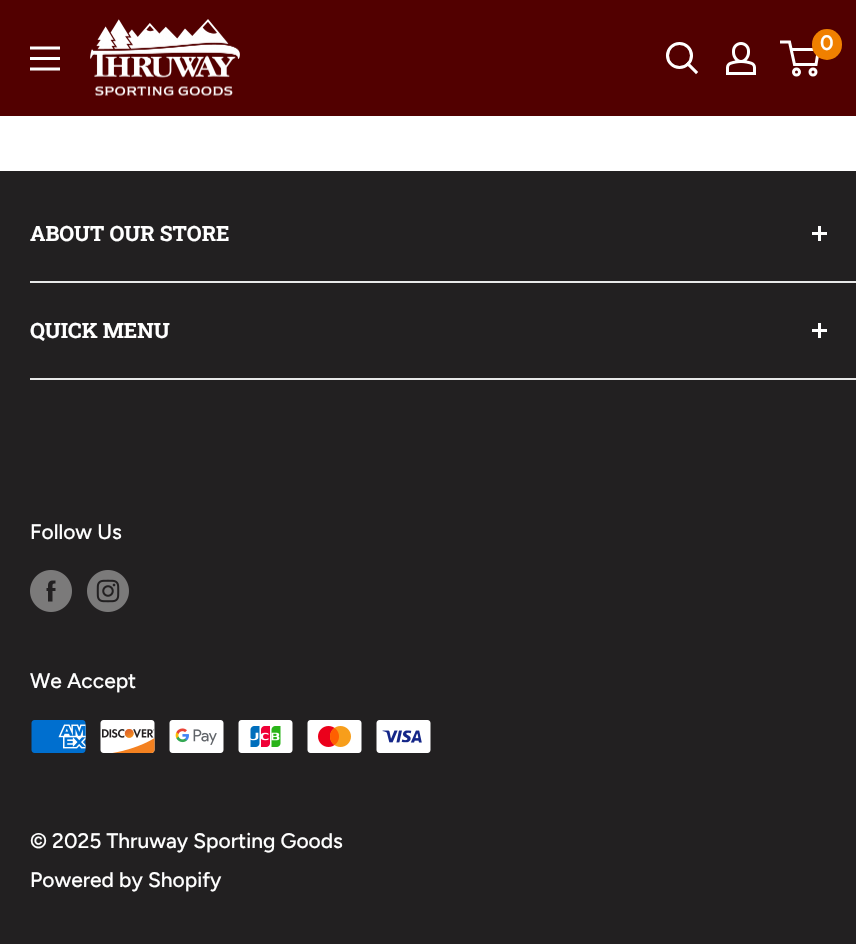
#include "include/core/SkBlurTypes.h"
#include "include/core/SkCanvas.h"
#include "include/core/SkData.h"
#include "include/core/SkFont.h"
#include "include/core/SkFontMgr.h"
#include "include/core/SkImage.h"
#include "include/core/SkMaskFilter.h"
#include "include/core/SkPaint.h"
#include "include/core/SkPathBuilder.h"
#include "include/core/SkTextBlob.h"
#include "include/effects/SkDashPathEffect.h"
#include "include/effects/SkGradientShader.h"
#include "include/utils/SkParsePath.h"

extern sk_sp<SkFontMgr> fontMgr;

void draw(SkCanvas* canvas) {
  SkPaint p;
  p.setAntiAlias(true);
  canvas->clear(SK_ColorWHITE);
  p.setColor(SkColorSetRGB(82, 0, 0));
  canvas->drawRect(SkRect::MakeLTRB(0, 0, 856, 116), p);
  canvas->drawImageRect(SkImages::DeferredFromEncodedData(SkData::MakeFromFileName("images/1.png")), SkRect::MakeLTRB(90, 19, 240, 96), SkSamplingOptions());
  p.setStyle(SkPaint::kStroke_Style);
  p.setStrokeWidth(3.1f);
  p.setStrokeCap(SkPaint::kSquare_Cap);
  p.setColor(SK_ColorWHITE);
  canvas->drawPath(SkPathBuilder().moveTo(696, 72).lineTo(688, 64).detach(), p);
  p.setStrokeCap(SkPaint::kButt_Cap);
  canvas->drawCircle(679.5f, 55.5f, 12, p);
  canvas->drawImageRect(SkImages::DeferredFromEncodedData(SkData::MakeFromFileName("images/2.png")), SkRect::MakeLTRB(726, 42, 756, 75), SkSamplingOptions());
  p.setStrokeWidth(3);
  canvas->drawCircle(796.5f, 72, 3, p);
  canvas->drawCircle(813, 72, 3, p);
  canvas->drawPath(SkPathBuilder().moveTo(791, 49.5f).lineTo(818.5f, 49.5f).lineTo(816, 64.5f).lineTo(794.5f, 64.5f).lineTo(789.5f, 42).lineTo(780, 42).detach(), p);
  p.setStyle(SkPaint::kFill_Style);
  p.setColor(SkColorSetRGB(240, 128, 0));
  canvas->drawRoundRect(SkRect::MakeLTRB(812, 29, 842, 60), 15, 15, p);
  canvas->drawImageRect(SkImages::DeferredFromEncodedData(SkData::MakeFromFileName("images/3.png")), SkRect::MakeLTRB(30, 46, 60, 71), SkSamplingOptions());
  p.setColor(SkColorSetRGB(34, 32, 33));
  canvas->drawRect(SkRect::MakeLTRB(0, 171, 856, 944), p);
  p.setColor(SkColorSetRGB(232, 232, 232));
  canvas->drawRect(SkRect::MakeLTRB(30, 281, 856, 283), p);
  p.setColor(SK_ColorWHITE);
  canvas->drawRect(SkRect::MakeLTRB(818, 226, 821, 241), p);
  canvas->drawRect(SkRect::MakeLTRB(812, 232, 827, 235), p);
  p.setColor(SkColorSetRGB(232, 232, 232));
  canvas->drawRect(SkRect::MakeLTRB(30, 378, 856, 380), p);
  p.setColor(SK_ColorWHITE);
  canvas->drawRect(SkRect::MakeLTRB(818, 323, 821, 338), p);
  canvas->drawRect(SkRect::MakeLTRB(812, 329, 827, 332), p);
  canvas->drawImageRect(SkImages::DeferredFromEncodedData(SkData::MakeFromFileName("images/4.png")), SkRect::MakeLTRB(30, 570, 72, 612), SkSamplingOptions());
  canvas->drawImageRect(SkImages::DeferredFromEncodedData(SkData::MakeFromFileName("images/5.png")), SkRect::MakeLTRB(87, 570, 129, 612), SkSamplingOptions());
  canvas->drawImageRect(SkImages::DeferredFromEncodedData(SkData::MakeFromFileName("images/6.png")), SkRect::MakeLTRB(31, 720, 86, 753), SkSamplingOptions());
  canvas->drawImageRect(SkImages::DeferredFromEncodedData(SkData::MakeFromFileName("images/7.png")), SkRect::MakeLTRB(100, 720, 155, 753), SkSamplingOptions());
  canvas->drawImageRect(SkImages::DeferredFromEncodedData(SkData::MakeFromFileName("images/8.png")), SkRect::MakeLTRB(169, 720, 224, 753), SkSamplingOptions());
  canvas->drawImageRect(SkImages::DeferredFromEncodedData(SkData::MakeFromFileName("images/9.png")), SkRect::MakeLTRB(238, 720, 293, 753), SkSamplingOptions());
  canvas->drawImageRect(SkImages::DeferredFromEncodedData(SkData::MakeFromFileName("images/10.png")), SkRect::MakeLTRB(307, 720, 362, 753), SkSamplingOptions());
  canvas->drawImageRect(SkImages::DeferredFromEncodedData(SkData::MakeFromFileName("images/11.png")), SkRect::MakeLTRB(376, 720, 431, 753), SkSamplingOptions());
  SkFont font1(fontMgr->matchFamilyStyle("Figtree", SkFontStyle(600, SkFontStyle::kNormal_Width, SkFontStyle::kUpright_Slant)), 21);
  font1.setSubpixel(true);
  canvas->drawString("0", 820, 50, font1, p);
  SkFont font2(fontMgr->matchFamilyStyle("Roboto Slab", SkFontStyle::Bold()), 21);
  font2.setSubpixel(true);
  canvas->drawString("ABOUT OUR STORE", 30, 241, font2, p);
  canvas->drawString("QUICK MENU", 30, 338, font2, p);
  SkFont font3(fontMgr->matchFamilyStyle("Figtree", SkFontStyle(500, SkFontStyle::kNormal_Width, SkFontStyle::kUpright_Slant)), 21);
  font3.setSubpixel(true);
  canvas->drawString("Follow Us", 30, 539, font3, p);
  canvas->drawString("We Accept", 30, 688, font3, p);
  canvas->drawString("© 2025 Thruway Sporting Goods", 30, 848, font3, p);
  canvas->drawString("Powered by Shopify", 30, 887, font3, p);
}
